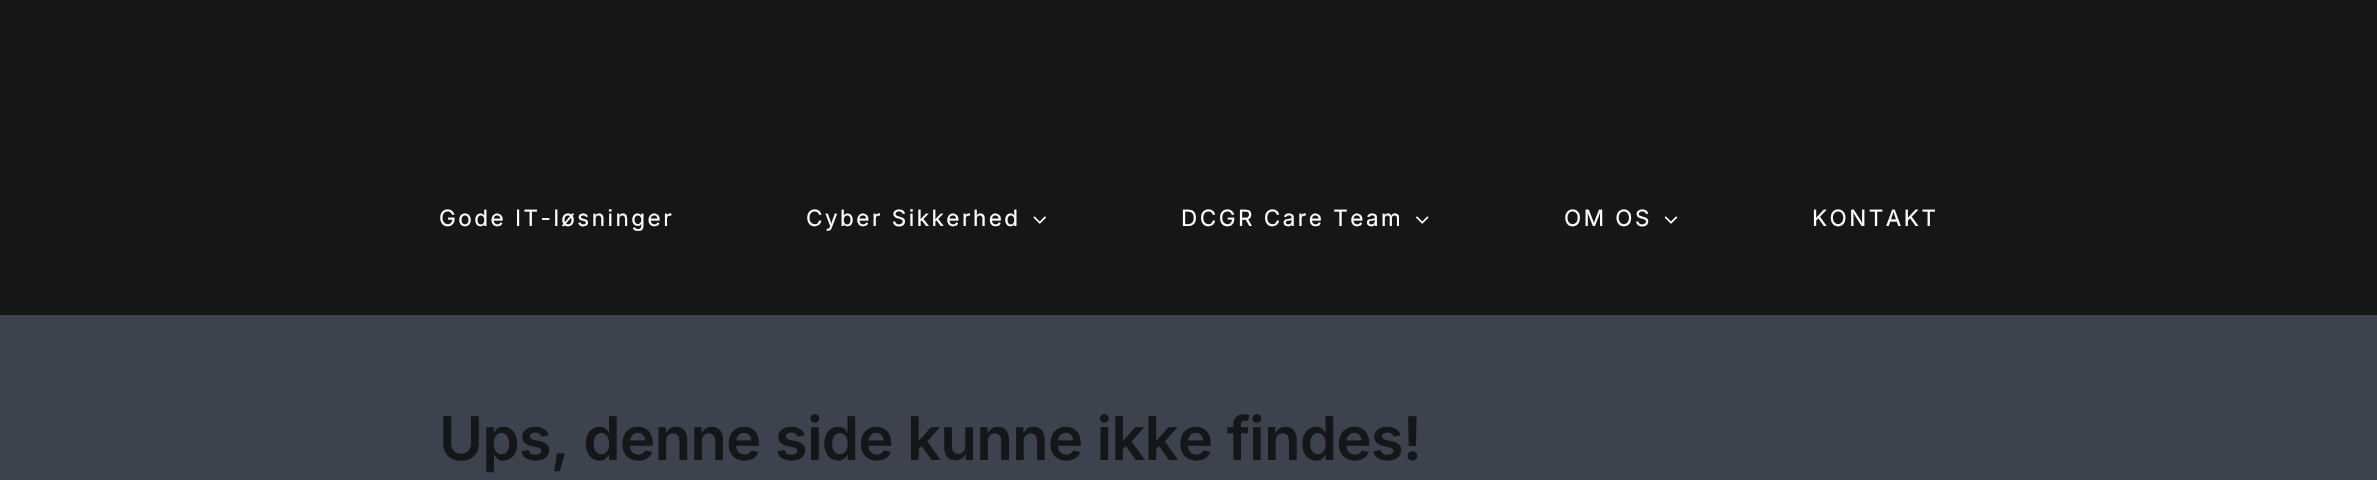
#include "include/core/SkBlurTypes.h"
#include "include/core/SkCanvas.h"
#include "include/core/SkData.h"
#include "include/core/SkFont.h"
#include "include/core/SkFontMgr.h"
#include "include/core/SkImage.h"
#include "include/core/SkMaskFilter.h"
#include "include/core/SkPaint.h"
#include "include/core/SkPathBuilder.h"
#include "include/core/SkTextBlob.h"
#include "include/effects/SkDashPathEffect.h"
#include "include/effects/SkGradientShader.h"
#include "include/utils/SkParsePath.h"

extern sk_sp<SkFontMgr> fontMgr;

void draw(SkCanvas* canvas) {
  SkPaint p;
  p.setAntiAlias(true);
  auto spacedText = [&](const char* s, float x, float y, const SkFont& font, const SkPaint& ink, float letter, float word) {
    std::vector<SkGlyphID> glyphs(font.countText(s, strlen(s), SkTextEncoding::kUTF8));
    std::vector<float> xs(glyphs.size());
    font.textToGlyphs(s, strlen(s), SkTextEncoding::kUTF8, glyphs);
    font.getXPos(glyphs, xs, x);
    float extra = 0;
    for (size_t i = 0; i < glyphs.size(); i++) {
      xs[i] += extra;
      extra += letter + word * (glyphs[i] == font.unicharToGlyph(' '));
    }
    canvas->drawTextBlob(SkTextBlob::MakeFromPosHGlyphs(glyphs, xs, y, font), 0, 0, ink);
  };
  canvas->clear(SkColorSetRGB(61, 66, 79));
  p.setColor(SkColorSetRGB(20, 22, 23));
  canvas->drawRect(SkRect::MakeLTRB(0, 0, 2377, 315), p);
  canvas->drawImageRect(SkImages::DeferredFromEncodedData(SkData::MakeFromFileName("images/1.png")), SkRect::MakeLTRB(1033, 216, 1046, 224), SkSamplingOptions());
  canvas->drawImageRect(SkImages::DeferredFromEncodedData(SkData::MakeFromFileName("images/2.png")), SkRect::MakeLTRB(1416, 216, 1429, 224), SkSamplingOptions());
  canvas->drawImageRect(SkImages::DeferredFromEncodedData(SkData::MakeFromFileName("images/3.png")), SkRect::MakeLTRB(1664, 216, 1678, 224), SkSamplingOptions());
  SkFont font1(fontMgr->matchFamilyStyle("Inter", SkFontStyle::Normal()), 22.5f);
  font1.setSubpixel(true);
  p.setColor(SK_ColorWHITE);
  spacedText("Gode IT-løsninger", 439, 226, font1, p, 2.5f, 0);
  spacedText("Cyber Sikkerhed", 806, 226, font1, p, 2.5f, 0);
  spacedText("DCGR Care Team", 1181, 226, font1, p, 2.5f, 0);
  spacedText("OM OS", 1564, 226, font1, p, 2.5f, 0);
  spacedText("KONTAKT", 1812, 226, font1, p, 2.5f, 0);
  SkFont font2(fontMgr->matchFamilyStyle("Inter", SkFontStyle(600, SkFontStyle::kNormal_Width, SkFontStyle::kUpright_Slant)), 60);
  font2.setSubpixel(true);
  p.setColor(SkColorSetRGB(20, 22, 23));
  spacedText("Ups, denne side kunne ikke findes!", 439, 460, font2, p, -0.9f, 0);
}
